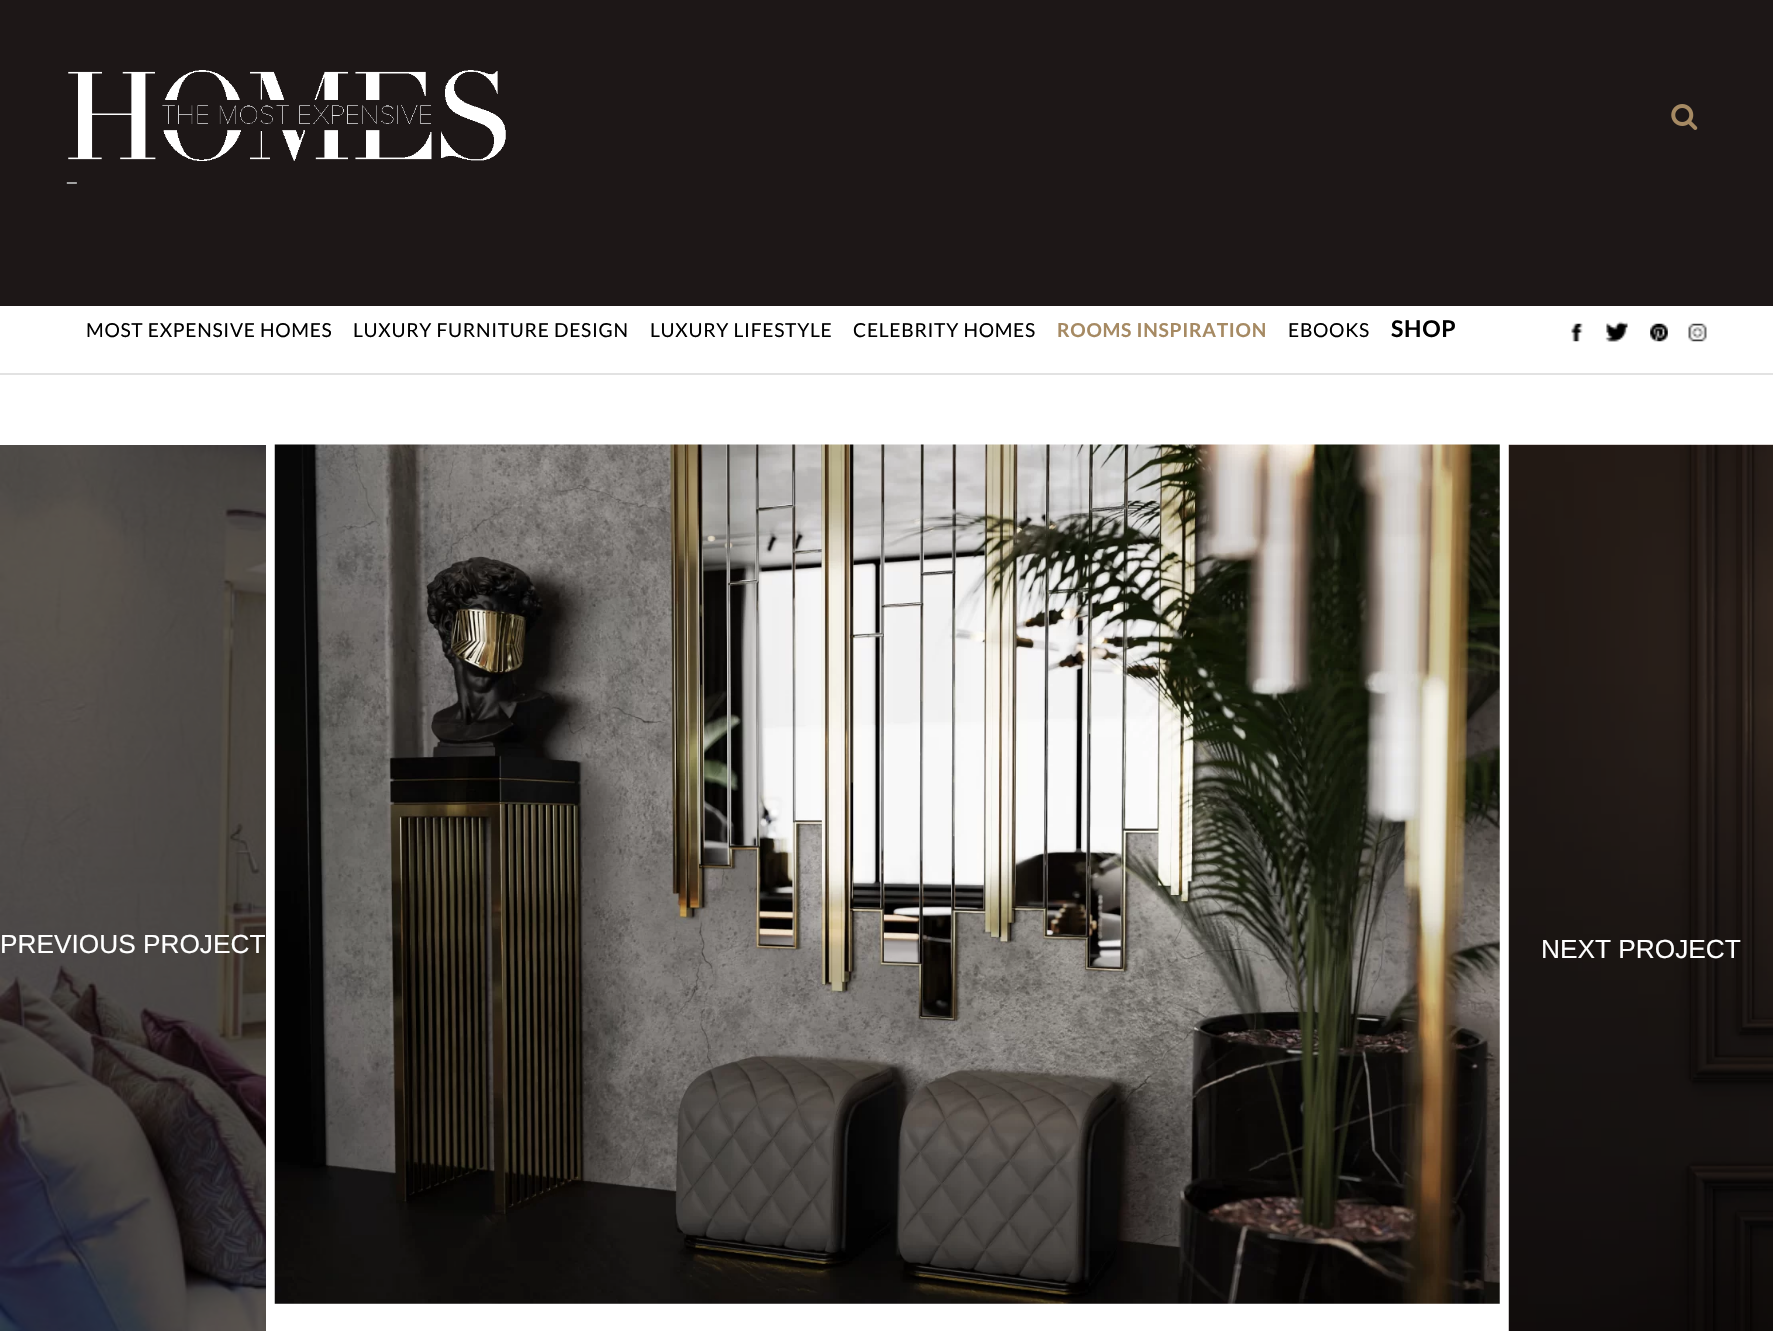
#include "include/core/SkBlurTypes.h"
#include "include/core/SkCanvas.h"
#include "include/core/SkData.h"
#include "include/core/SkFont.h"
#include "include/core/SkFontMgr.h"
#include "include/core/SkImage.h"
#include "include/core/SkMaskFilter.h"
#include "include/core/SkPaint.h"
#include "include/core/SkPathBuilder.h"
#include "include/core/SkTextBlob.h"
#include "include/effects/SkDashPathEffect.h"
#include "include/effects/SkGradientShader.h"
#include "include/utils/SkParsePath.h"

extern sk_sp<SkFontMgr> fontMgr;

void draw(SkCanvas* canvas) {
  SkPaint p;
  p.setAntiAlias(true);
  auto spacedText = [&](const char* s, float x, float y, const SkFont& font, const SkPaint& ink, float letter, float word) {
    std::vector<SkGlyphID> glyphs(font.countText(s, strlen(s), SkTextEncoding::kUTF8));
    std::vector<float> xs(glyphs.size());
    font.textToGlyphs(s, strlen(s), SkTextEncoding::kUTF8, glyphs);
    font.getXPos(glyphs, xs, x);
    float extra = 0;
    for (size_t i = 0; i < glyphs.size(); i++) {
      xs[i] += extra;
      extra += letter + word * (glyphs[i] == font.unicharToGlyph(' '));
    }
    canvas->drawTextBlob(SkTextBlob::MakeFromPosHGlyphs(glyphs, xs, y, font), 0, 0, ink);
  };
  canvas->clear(SK_ColorWHITE);
  p.setColor(SkColorSetRGB(29, 23, 23));
  canvas->drawRect(SkRect::MakeLTRB(0, 0, 1773, 306), p);
  canvas->drawImageRect(SkImages::DeferredFromEncodedData(SkData::MakeFromFileName("images/1.png")), SkRect::MakeLTRB(68, 70, 506, 161), SkSamplingOptions());
  canvas->drawImageRect(SkImages::DeferredFromEncodedData(SkData::MakeFromFileName("images/2.png")), SkRect::MakeLTRB(1671, 104, 1698, 130), SkSamplingOptions());
  p.setColor(SkColorSetRGB(226, 226, 226));
  canvas->drawRect(SkRect::MakeLTRB(0, 373, 1773, 375), p);
  canvas->drawImageRect(SkImages::DeferredFromEncodedData(SkData::MakeFromFileName("images/3.png")), SkRect::MakeLTRB(1571, 323, 1583, 342), SkSamplingOptions());
  canvas->drawImageRect(SkImages::DeferredFromEncodedData(SkData::MakeFromFileName("images/4.png")), SkRect::MakeLTRB(1605, 321, 1628, 342), SkSamplingOptions());
  canvas->drawImageRect(SkImages::DeferredFromEncodedData(SkData::MakeFromFileName("images/5.png")), SkRect::MakeLTRB(1650, 323, 1668, 342), SkSamplingOptions());
  canvas->drawImageRect(SkImages::DeferredFromEncodedData(SkData::MakeFromFileName("images/6.png")), SkRect::MakeLTRB(1688, 323, 1707, 342), SkSamplingOptions());
  canvas->drawImageRect(SkImages::DeferredFromEncodedData(SkData::MakeFromFileName("images/7.png")), SkRect::MakeLTRB(0, 445, 266, 1331), SkSamplingOptions());
  canvas->drawImageRect(SkImages::DeferredFromEncodedData(SkData::MakeFromFileName("images/8.png")), SkRect::MakeLTRB(274, 444, 1500, 1304), SkSamplingOptions());
  canvas->drawImageRect(SkImages::DeferredFromEncodedData(SkData::MakeFromFileName("images/9.png")), SkRect::MakeLTRB(1508, 444, 1773, 1331), SkSamplingOptions());
  SkFont font1(fontMgr->matchFamilyStyle("Lora", SkFontStyle::Normal()), 28);
  font1.setSubpixel(true);
  p.setColor(SkColorSetRGB(162, 162, 162));
  canvas->drawString("-", 65, 192, font1, p);
  SkFont font2(fontMgr->matchFamilyStyle("Lato", SkFontStyle::Normal()), 19.25f);
  font2.setSubpixel(true);
  p.setColor(SK_ColorBLACK);
  spacedText("MOST EXPENSIVE HOMES", 86, 337, font2, p, 0.7f, 0);
  spacedText("LUXURY FURNITURE DESIGN", 353, 337, font2, p, 0.7f, 0);
  spacedText("LUXURY LIFESTYLE", 650, 337, font2, p, 0.7f, 0);
  spacedText("CELEBRITY HOMES", 853, 337, font2, p, 0.7f, 0);
  SkFont font3(fontMgr->matchFamilyStyle("Lato", SkFontStyle::Bold()), 19.25f);
  font3.setSubpixel(true);
  p.setColor(SkColorSetRGB(166, 138, 99));
  spacedText("ROOMS INSPIRATION", 1057, 337, font3, p, 0.7f, 0);
  p.setColor(SK_ColorBLACK);
  spacedText("EBOOKS", 1288, 337, font2, p, 0.7f, 0);
  SkFont font4(fontMgr->matchFamilyStyle("Lato", SkFontStyle::Bold()), 23);
  font4.setSubpixel(true);
  spacedText("SHOP", 1391, 337, font4, p, 0.7f, 0);
  SkFont font5(fontMgr->matchFamilyStyle("Liberation Sans", SkFontStyle::Normal()), 26.25f);
  font5.setSubpixel(true);
  p.setColor(SK_ColorWHITE);
  canvas->drawString("PREVIOUS PROJECT", 0, 953, font5, p);
  canvas->drawString("NEXT PROJECT", 1541, 958, font5, p);
}
